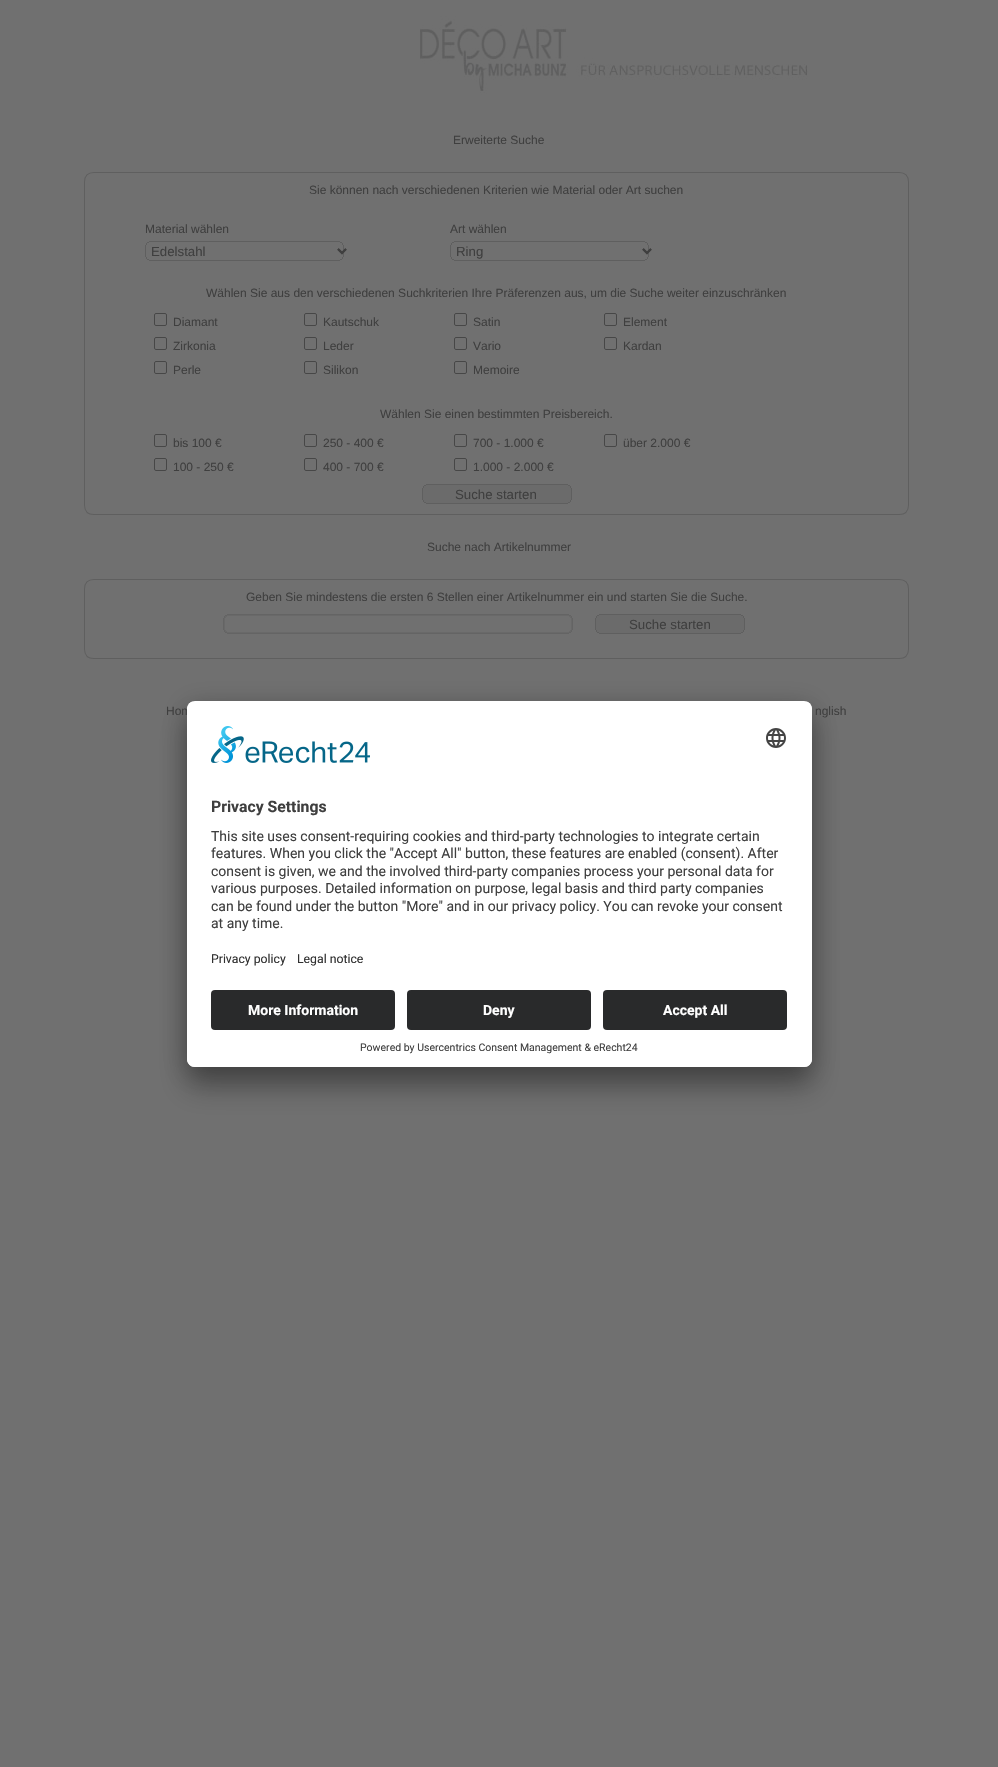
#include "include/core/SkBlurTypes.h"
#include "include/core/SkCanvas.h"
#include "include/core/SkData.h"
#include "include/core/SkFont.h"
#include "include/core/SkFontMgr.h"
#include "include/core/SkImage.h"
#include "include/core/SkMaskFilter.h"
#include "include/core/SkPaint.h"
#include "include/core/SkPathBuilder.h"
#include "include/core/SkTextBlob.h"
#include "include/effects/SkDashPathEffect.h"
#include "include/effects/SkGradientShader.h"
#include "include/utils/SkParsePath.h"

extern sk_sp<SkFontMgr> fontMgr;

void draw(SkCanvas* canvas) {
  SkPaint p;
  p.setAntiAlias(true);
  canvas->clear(SkColorSetRGB(112, 112, 112));
  canvas->drawImageRect(SkImages::DeferredFromEncodedData(SkData::MakeFromFileName("images/1.png")), SkRect::MakeLTRB(420, 16, 808, 95), SkSamplingOptions());
  canvas->drawImageRect(SkImages::DeferredFromEncodedData(SkData::MakeFromFileName("images/2.png")), SkRect::MakeLTRB(84, 172, 909, 515), SkSamplingOptions());
  canvas->drawImageRect(SkImages::DeferredFromEncodedData(SkData::MakeFromFileName("images/3.png")), SkRect::MakeLTRB(145, 241, 347, 261), SkSamplingOptions());
  p.setStyle(SkPaint::kStroke_Style);
  p.setStrokeWidth(2);
  p.setColor(SkColorSetRGB(63, 63, 63));
  canvas->drawPath(SkPathBuilder().moveTo(338, 249).lineTo(342, 253).lineTo(346, 249).detach(), p);
  canvas->drawImageRect(SkImages::DeferredFromEncodedData(SkData::MakeFromFileName("images/3.png")), SkRect::MakeLTRB(450, 241, 652, 261), SkSamplingOptions());
  canvas->drawPath(SkPathBuilder().moveTo(643, 249).lineTo(647, 253).lineTo(651, 249).detach(), p);
  p.setStrokeWidth(1);
  p.setColor(SkColorSetRGB(71, 71, 71));
  canvas->drawRoundRect(SkRect::MakeLTRB(154.5f, 313.5f, 166.5f, 325.5f), 1.5f, 1.5f, p);
  canvas->drawRoundRect(SkRect::MakeLTRB(304.5f, 313.5f, 316.5f, 325.5f), 1.5f, 1.5f, p);
  canvas->drawRoundRect(SkRect::MakeLTRB(454.5f, 313.5f, 466.5f, 325.5f), 1.5f, 1.5f, p);
  canvas->drawRoundRect(SkRect::MakeLTRB(604.5f, 313.5f, 616.5f, 325.5f), 1.5f, 1.5f, p);
  canvas->drawRoundRect(SkRect::MakeLTRB(154.5f, 337.5f, 166.5f, 349.5f), 1.5f, 1.5f, p);
  canvas->drawRoundRect(SkRect::MakeLTRB(304.5f, 337.5f, 316.5f, 349.5f), 1.5f, 1.5f, p);
  canvas->drawRoundRect(SkRect::MakeLTRB(454.5f, 337.5f, 466.5f, 349.5f), 1.5f, 1.5f, p);
  canvas->drawRoundRect(SkRect::MakeLTRB(604.5f, 337.5f, 616.5f, 349.5f), 1.5f, 1.5f, p);
  canvas->drawRoundRect(SkRect::MakeLTRB(154.5f, 361.5f, 166.5f, 373.5f), 1.5f, 1.5f, p);
  canvas->drawRoundRect(SkRect::MakeLTRB(304.5f, 361.5f, 316.5f, 373.5f), 1.5f, 1.5f, p);
  canvas->drawRoundRect(SkRect::MakeLTRB(454.5f, 361.5f, 466.5f, 373.5f), 1.5f, 1.5f, p);
  canvas->drawRoundRect(SkRect::MakeLTRB(154.5f, 434.5f, 166.5f, 446.5f), 1.5f, 1.5f, p);
  canvas->drawRoundRect(SkRect::MakeLTRB(304.5f, 434.5f, 316.5f, 446.5f), 1.5f, 1.5f, p);
  canvas->drawRoundRect(SkRect::MakeLTRB(454.5f, 434.5f, 466.5f, 446.5f), 1.5f, 1.5f, p);
  canvas->drawRoundRect(SkRect::MakeLTRB(604.5f, 434.5f, 616.5f, 446.5f), 1.5f, 1.5f, p);
  canvas->drawRoundRect(SkRect::MakeLTRB(154.5f, 458.5f, 166.5f, 470.5f), 1.5f, 1.5f, p);
  canvas->drawRoundRect(SkRect::MakeLTRB(304.5f, 458.5f, 316.5f, 470.5f), 1.5f, 1.5f, p);
  canvas->drawRoundRect(SkRect::MakeLTRB(454.5f, 458.5f, 466.5f, 470.5f), 1.5f, 1.5f, p);
  canvas->drawImageRect(SkImages::DeferredFromEncodedData(SkData::MakeFromFileName("images/4.png")), SkRect::MakeLTRB(422, 484, 572, 504), SkSamplingOptions());
  canvas->drawImageRect(SkImages::DeferredFromEncodedData(SkData::MakeFromFileName("images/5.png")), SkRect::MakeLTRB(84, 579, 909, 659), SkSamplingOptions());
  canvas->drawImageRect(SkImages::DeferredFromEncodedData(SkData::MakeFromFileName("images/6.png")), SkRect::MakeLTRB(223, 614, 573, 634), SkSamplingOptions());
  canvas->drawImageRect(SkImages::DeferredFromEncodedData(SkData::MakeFromFileName("images/4.png")), SkRect::MakeLTRB(595, 614, 745, 634), SkSamplingOptions());
  p.setStyle(SkPaint::kFill_Style);
  p.setColor(SkColorSetARGB(77, 0, 0, 0));
  p.setMaskFilter(SkMaskFilter::MakeBlur(kNormal_SkBlurStyle, 14));
  canvas->drawRoundRect(SkRect::MakeLTRB(187, 721, 812, 1087), 8, 8, p);
  p.setMaskFilter(nullptr);
  p.setColor(SkColorSetARGB(56, 0, 0, 0));
  p.setMaskFilter(SkMaskFilter::MakeBlur(kNormal_SkBlurStyle, 13));
  canvas->drawRoundRect(SkRect::MakeLTRB(187, 706, 812, 1072), 8, 8, p);
  p.setMaskFilter(nullptr);
  SkFont font1(fontMgr->matchFamilyStyle("Liberation Sans", SkFontStyle::Normal()), 12);
  font1.setSubpixel(true);
  p.setColor(SkColorSetRGB(63, 63, 63));
  canvas->drawString("Erweiterte Suche", 453, 144, font1, p);
  canvas->drawString("Sie können nach verschiedenen Kriterien wie Material oder Art suchen", 309, 194, font1, p);
  canvas->drawString("Material wählen", 145, 233, font1, p);
  SkFont font2(fontMgr->matchFamilyStyle("Liberation Sans", SkFontStyle::Normal()), 13.25f);
  font2.setSubpixel(true);
  canvas->drawString("Edelstahl", 151, 256, font2, p);
  canvas->drawString("Art wählen", 450, 233, font1, p);
  canvas->drawString("Ring", 456, 256, font2, p);
  canvas->drawString("Wählen Sie aus den verschiedenen Suchkriterien Ihre Präferenzen aus, um die Suche weiter einzuschränken", 206, 297, font1, p);
  canvas->drawString("Diamant", 173, 326, font1, p);
  canvas->drawString("Kautschuk", 323, 326, font1, p);
  canvas->drawString("Satin", 473, 326, font1, p);
  canvas->drawString("Element", 623, 326, font1, p);
  canvas->drawString("Zirkonia", 173, 350, font1, p);
  canvas->drawString("Leder", 323, 350, font1, p);
  canvas->drawString("Vario", 473, 350, font1, p);
  canvas->drawString("Kardan", 623, 350, font1, p);
  canvas->drawString("Perle", 173, 374, font1, p);
  canvas->drawString("Silikon", 323, 374, font1, p);
  canvas->drawString("Memoire", 473, 374, font1, p);
  canvas->drawString("Wählen Sie einen bestimmten Preisbereich.", 380, 418, font1, p);
  canvas->drawString("bis 100 €", 173, 447, font1, p);
  canvas->drawString("250 - 400 €", 323, 447, font1, p);
  canvas->drawString("700 - 1.000 €", 473, 447, font1, p);
  canvas->drawString("über 2.000 €", 623, 447, font1, p);
  canvas->drawString("100 - 250 €", 173, 471, font1, p);
  canvas->drawString("400 - 700 €", 323, 471, font1, p);
  canvas->drawString("1.000 - 2.000 €", 473, 471, font1, p);
  canvas->drawString("Suche starten", 455, 499, font2, p);
  canvas->drawString("Suche nach Artikelnummer", 427, 551, font1, p);
  canvas->drawString("Geben Sie mindestens die ersten 6 Stellen einer Artikelnummer ein und starten Sie die Suche.", 246, 601, font1, p);
  canvas->drawString("Suche starten", 629, 629, font2, p);
  canvas->drawString("Hom", 166, 715, font1, p);
  canvas->drawString("nglish", 815, 715, font1, p);
  p.setColor(SK_ColorWHITE);
  canvas->drawRoundRect(SkRect::MakeLTRB(187, 701, 812, 1067), 8, 8, p);
  canvas->save();
  canvas->clipPath(SkPathBuilder().moveTo(195, 701).lineTo(804, 701).cubicTo(808.5f, 701, 812, 704.5f, 812, 709).lineTo(812, 1059).cubicTo(812, 1063.5f, 808.5f, 1067, 804, 1067).lineTo(195, 1067).cubicTo(190.5f, 1067, 187, 1063.5f, 187, 1059).lineTo(187, 709).cubicTo(187, 704.5f, 190.5f, 701, 195, 701).close().detach(), true);
  canvas->clipPath(SkPathBuilder().moveTo(195, 701).lineTo(804, 701).cubicTo(808.5f, 701, 812, 704.5f, 812, 709).lineTo(812, 982).lineTo(187, 982).lineTo(187, 709).cubicTo(187, 704.5f, 190.5f, 701, 195, 701).close().detach(), true);
  canvas->drawRect(SkRect::MakeLTRB(187, 702, 812, 982), p);
  canvas->restore();
  canvas->drawImageRect(SkImages::DeferredFromEncodedData(SkData::MakeFromFileName("images/7.png")), SkRect::MakeLTRB(211, 726, 370, 763), SkSamplingOptions());
  canvas->drawImageRect(SkImages::DeferredFromEncodedData(SkData::MakeFromFileName("images/8.png")), SkRect::MakeLTRB(766, 728, 786, 748), SkSamplingOptions());
  SkFont font3(fontMgr->matchFamilyStyle("Roboto", SkFontStyle::Bold()), 15.75f);
  font3.setSubpixel(true);
  p.setColor(SkColorSetRGB(63, 63, 63));
  canvas->drawString("Privacy Settings", 211, 812, font3, p);
  SkFont font4(fontMgr->matchFamilyStyle("Roboto", SkFontStyle::Normal()), 14);
  font4.setSubpixel(true);
  canvas->drawString("This site uses consent-requiring cookies and third-party technologies to integrate certain", 211, 841, font4, p);
  canvas->drawString("features. When you click the \"Accept All\" button, these features are enabled (consent). After", 211, 858, font4, p);
  canvas->drawString("consent is given, we and the involved third-party companies process your personal data for", 211, 876, font4, p);
  canvas->drawString("various purposes. Detailed information on purpose, legal basis and third party companies", 211, 893, font4, p);
  canvas->drawString("can be found under the button \"More\" and in our privacy policy. You can revoke your consent", 211, 911, font4, p);
  canvas->drawString("at any time.", 211, 928, font4, p);
  SkFont font5(fontMgr->matchFamilyStyle("Roboto", SkFontStyle::Normal()), 12.25f);
  font5.setSubpixel(true);
  p.setColor(SkColorSetRGB(48, 48, 48));
  canvas->drawString("Privacy policy", 211, 963, font5, p);
  canvas->drawString("Legal notice", 297, 963, font5, p);
  p.setColor(SK_ColorWHITE);
  canvas->drawPath(SkPathBuilder().moveTo(187, 982).lineTo(812, 982).lineTo(812, 1059).cubicTo(812, 1063.5f, 808.5f, 1067, 804, 1067).lineTo(195, 1067).cubicTo(190.5f, 1067, 187, 1063.5f, 187, 1059).close().detach(), p);
  p.setColor(SkColorSetRGB(41, 42, 43));
  canvas->drawRoundRect(SkRect::MakeLTRB(211, 990, 395, 1030), 4, 4, p);
  SkFont font6(fontMgr->matchFamilyStyle("Roboto", SkFontStyle::Bold()), 14);
  font6.setSubpixel(true);
  p.setColor(SK_ColorWHITE);
  canvas->drawString("More Information", 248, 1015, font6, p);
  p.setColor(SkColorSetRGB(41, 42, 43));
  canvas->drawRoundRect(SkRect::MakeLTRB(407, 990, 591, 1030), 4, 4, p);
  p.setColor(SK_ColorWHITE);
  canvas->drawString("Deny", 483, 1015, font6, p);
  p.setColor(SkColorSetRGB(41, 42, 43));
  canvas->drawRoundRect(SkRect::MakeLTRB(603, 990, 787, 1030), 4, 4, p);
  p.setColor(SK_ColorWHITE);
  canvas->drawString("Accept All", 663, 1015, font6, p);
  SkFont font7(fontMgr->matchFamilyStyle("Roboto", SkFontStyle::Normal()), 10.5f);
  font7.setSubpixel(true);
  p.setColor(SkColorSetRGB(63, 63, 63));
  canvas->drawString("Powered by Usercentrics Consent Management & eRecht24", 360, 1051, font7, p);
}
